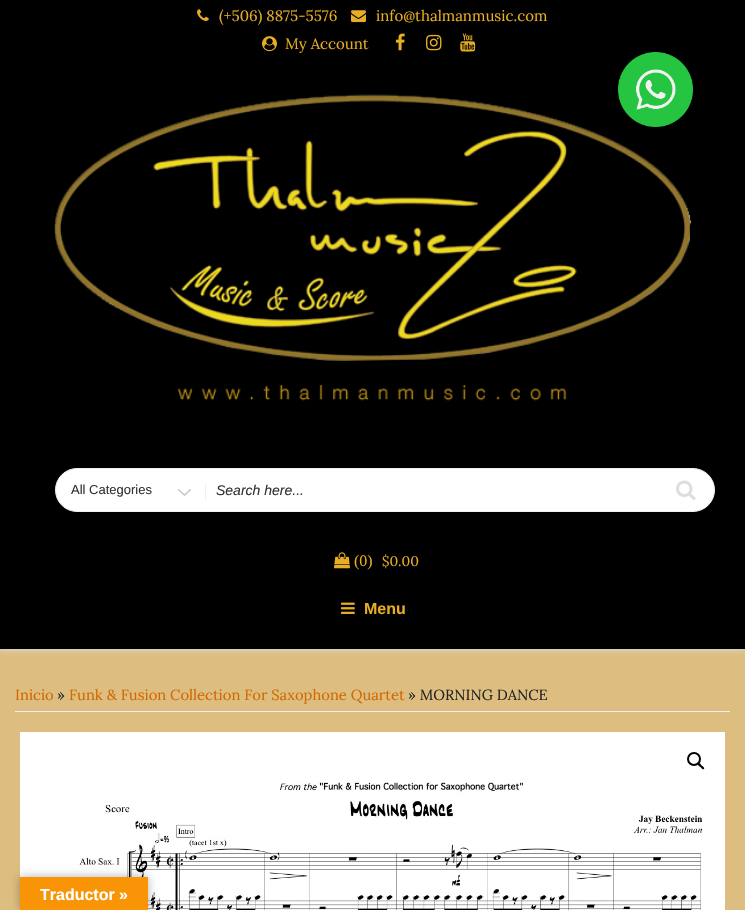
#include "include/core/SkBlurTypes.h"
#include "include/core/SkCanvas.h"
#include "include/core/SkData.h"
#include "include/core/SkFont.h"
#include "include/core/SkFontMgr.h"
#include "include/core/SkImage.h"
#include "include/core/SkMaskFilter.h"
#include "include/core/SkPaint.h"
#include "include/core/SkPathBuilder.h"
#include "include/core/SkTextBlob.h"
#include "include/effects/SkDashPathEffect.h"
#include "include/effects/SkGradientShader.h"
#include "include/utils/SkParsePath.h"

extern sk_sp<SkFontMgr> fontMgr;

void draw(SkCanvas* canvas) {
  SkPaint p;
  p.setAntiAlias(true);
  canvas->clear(SkColorSetRGB(221, 190, 128));
  p.setColor(SkColorSetRGB(219, 219, 219));
  p.setMaskFilter(SkMaskFilter::MakeBlur(kNormal_SkBlurStyle, 3));
  canvas->drawRect(SkRect::MakeLTRB(0, 1, 745, 650), p);
  p.setMaskFilter(nullptr);
  p.setColor(SK_ColorBLACK);
  canvas->drawRect(SkRect::MakeLTRB(0, 0, 745, 649), p);
  canvas->drawImageRect(SkImages::DeferredFromEncodedData(SkData::MakeFromFileName("images/1.png")), SkRect::MakeLTRB(197, 9, 209, 21), SkSamplingOptions());
  canvas->drawImageRect(SkImages::DeferredFromEncodedData(SkData::MakeFromFileName("images/2.png")), SkRect::MakeLTRB(351, 10, 366, 23), SkSamplingOptions());
  canvas->drawImageRect(SkImages::DeferredFromEncodedData(SkData::MakeFromFileName("images/3.png")), SkRect::MakeLTRB(262, 36, 277, 52), SkSamplingOptions());
  canvas->drawImageRect(SkImages::DeferredFromEncodedData(SkData::MakeFromFileName("images/4.png")), SkRect::MakeLTRB(395, 33, 405, 51), SkSamplingOptions());
  canvas->drawImageRect(SkImages::DeferredFromEncodedData(SkData::MakeFromFileName("images/5.png")), SkRect::MakeLTRB(426, 34, 442, 51), SkSamplingOptions());
  canvas->drawImageRect(SkImages::DeferredFromEncodedData(SkData::MakeFromFileName("images/6.png")), SkRect::MakeLTRB(460, 33, 476, 52), SkSamplingOptions());
  canvas->drawImageRect(SkImages::DeferredFromEncodedData(SkData::MakeFromFileName("images/7.png")), SkRect::MakeLTRB(54, 94, 692, 401), SkSamplingOptions());
  p.setColor(SK_ColorWHITE);
  canvas->drawRoundRect(SkRect::MakeLTRB(55.5f, 468.5f, 714.5f, 511.5f), 21.5f, 21.5f, p);
  p.setStyle(SkPaint::kStroke_Style);
  p.setStrokeWidth(1);
  p.setColor(SkColorSetRGB(240, 240, 240));
  canvas->drawRoundRect(SkRect::MakeLTRB(55.5f, 468.5f, 714.5f, 511.5f), 21.5f, 21.5f, p);
  canvas->drawImageRect(SkImages::DeferredFromEncodedData(SkData::MakeFromFileName("images/8.png")), SkRect::MakeLTRB(178, 489, 191, 496), SkSamplingOptions());
  p.setStyle(SkPaint::kFill_Style);
  canvas->drawRect(SkRect::MakeLTRB(205, 483, 206, 501), p);
  canvas->drawImageRect(SkImages::DeferredFromEncodedData(SkData::MakeFromFileName("images/9.png")), SkRect::MakeLTRB(676, 480, 696, 500), SkSamplingOptions());
  canvas->drawImageRect(SkImages::DeferredFromEncodedData(SkData::MakeFromFileName("images/10.png")), SkRect::MakeLTRB(334, 552, 350, 569), SkSamplingOptions());
  canvas->drawImageRect(SkImages::DeferredFromEncodedData(SkData::MakeFromFileName("images/11.png")), SkRect::MakeLTRB(341, 602, 355, 614), SkSamplingOptions());
  canvas->drawImageRect(SkImages::DeferredFromEncodedData(SkData::MakeFromFileName("images/12.png")), SkRect::MakeLTRB(618, 52, 693, 127), SkSamplingOptions());
  p.setColor(SkColorSetRGB(239, 239, 239));
  canvas->drawRect(SkRect::MakeLTRB(15, 711, 730, 712), p);
  canvas->drawImageRect(SkImages::DeferredFromEncodedData(SkData::MakeFromFileName("images/13.png")), SkRect::MakeLTRB(20, 732, 725, 910), SkSamplingOptions());
  p.setStyle(SkPaint::kStroke_Style);
  p.setStrokeWidth(2);
  p.setColor(SK_ColorBLACK);
  canvas->drawCircle(694, 759, 6, p);
  p.setStyle(SkPaint::kFill_Style);
  canvas->drawPath(SkPathBuilder().moveTo(698, 763.5f).cubicTo(699.5f, 762, 701, 765, 701.5f, 765.5f).cubicTo(702.5f, 766, 705, 768, 704, 769).cubicTo(702.5f, 770, 701, 767.5f, 700.5f, 767).cubicTo(699.5f, 766.5f, 697, 764.5f, 698, 763.5f).close().detach(), p);
  p.setColor(SkColorSetARGB(77, 0, 0, 0));
  p.setMaskFilter(SkMaskFilter::MakeBlur(kNormal_SkBlurStyle, 4.5f));
  canvas->drawRect(SkRect::MakeLTRB(20, 877, 148, 910), p);
  p.setMaskFilter(nullptr);
  p.setColor(SkColorSetRGB(248, 148, 6));
  canvas->drawRect(SkRect::MakeLTRB(20, 877, 148, 910), p);
  SkFont font1(fontMgr->matchFamilyStyle("Lora", SkFontStyle::Normal()), 15);
  font1.setSubpixel(true);
  p.setColor(SkColorSetRGB(231, 173, 36));
  canvas->drawString("(+506) 8875-5576", 219, 21, font1, p);
  canvas->drawString("info@thalmanmusic.com", 376, 21, font1, p);
  canvas->drawString("My Account", 285, 49, font1, p);
  SkFont font2(fontMgr->matchFamilyStyle("Liberation Sans", SkFontStyle::Normal()), 13);
  font2.setSubpixel(true);
  p.setColor(SkColorSetRGB(51, 51, 51));
  canvas->drawString("All Categories", 71, 494, font2, p);
  SkFont font3(fontMgr->matchFamilyStyle("Liberation Sans", SkFontStyle::Italic()), 14);
  font3.setSubpixel(true);
  canvas->drawString("Search here...", 216, 495, font3, p);
  SkFont font4(fontMgr->matchFamilyStyle("Liberation Serif", SkFontStyle::Normal()), 16);
  font4.setSubpixel(true);
  p.setColor(SkColorSetRGB(231, 173, 36));
  canvas->drawString("(0)", 354, 566, font4, p);
  SkFont font5(fontMgr->matchFamilyStyle("Lora", SkFontStyle::Normal()), 14);
  font5.setSubpixel(true);
  canvas->drawString("$0.00", 382, 566, font5, p);
  SkFont font6(fontMgr->matchFamilyStyle("Liberation Sans", SkFontStyle::Bold()), 16);
  font6.setSubpixel(true);
  canvas->drawString("Menu", 364, 614, font6, p);
  SkFont font7(fontMgr->matchFamilyStyle("Lora", SkFontStyle::Normal()), 14.75f);
  font7.setSubpixel(true);
  p.setColor(SkColorSetRGB(209, 104, 0));
  canvas->drawString("Inicio", 15, 700, font7, p);
  p.setColor(SkColorSetRGB(35, 34, 34));
  canvas->drawString("»", 57, 700, font7, p);
  p.setColor(SkColorSetRGB(209, 104, 0));
  canvas->drawString("Funk & Fusion Collection For Saxophone Quartet", 69, 700, font7, p);
  p.setColor(SkColorSetRGB(35, 34, 34));
  canvas->drawString("» MORNING DANCE", 408, 700, font7, p);
  p.setColor(SK_ColorWHITE);
  canvas->drawString("Traductor »", 40, 900, font6, p);
}
